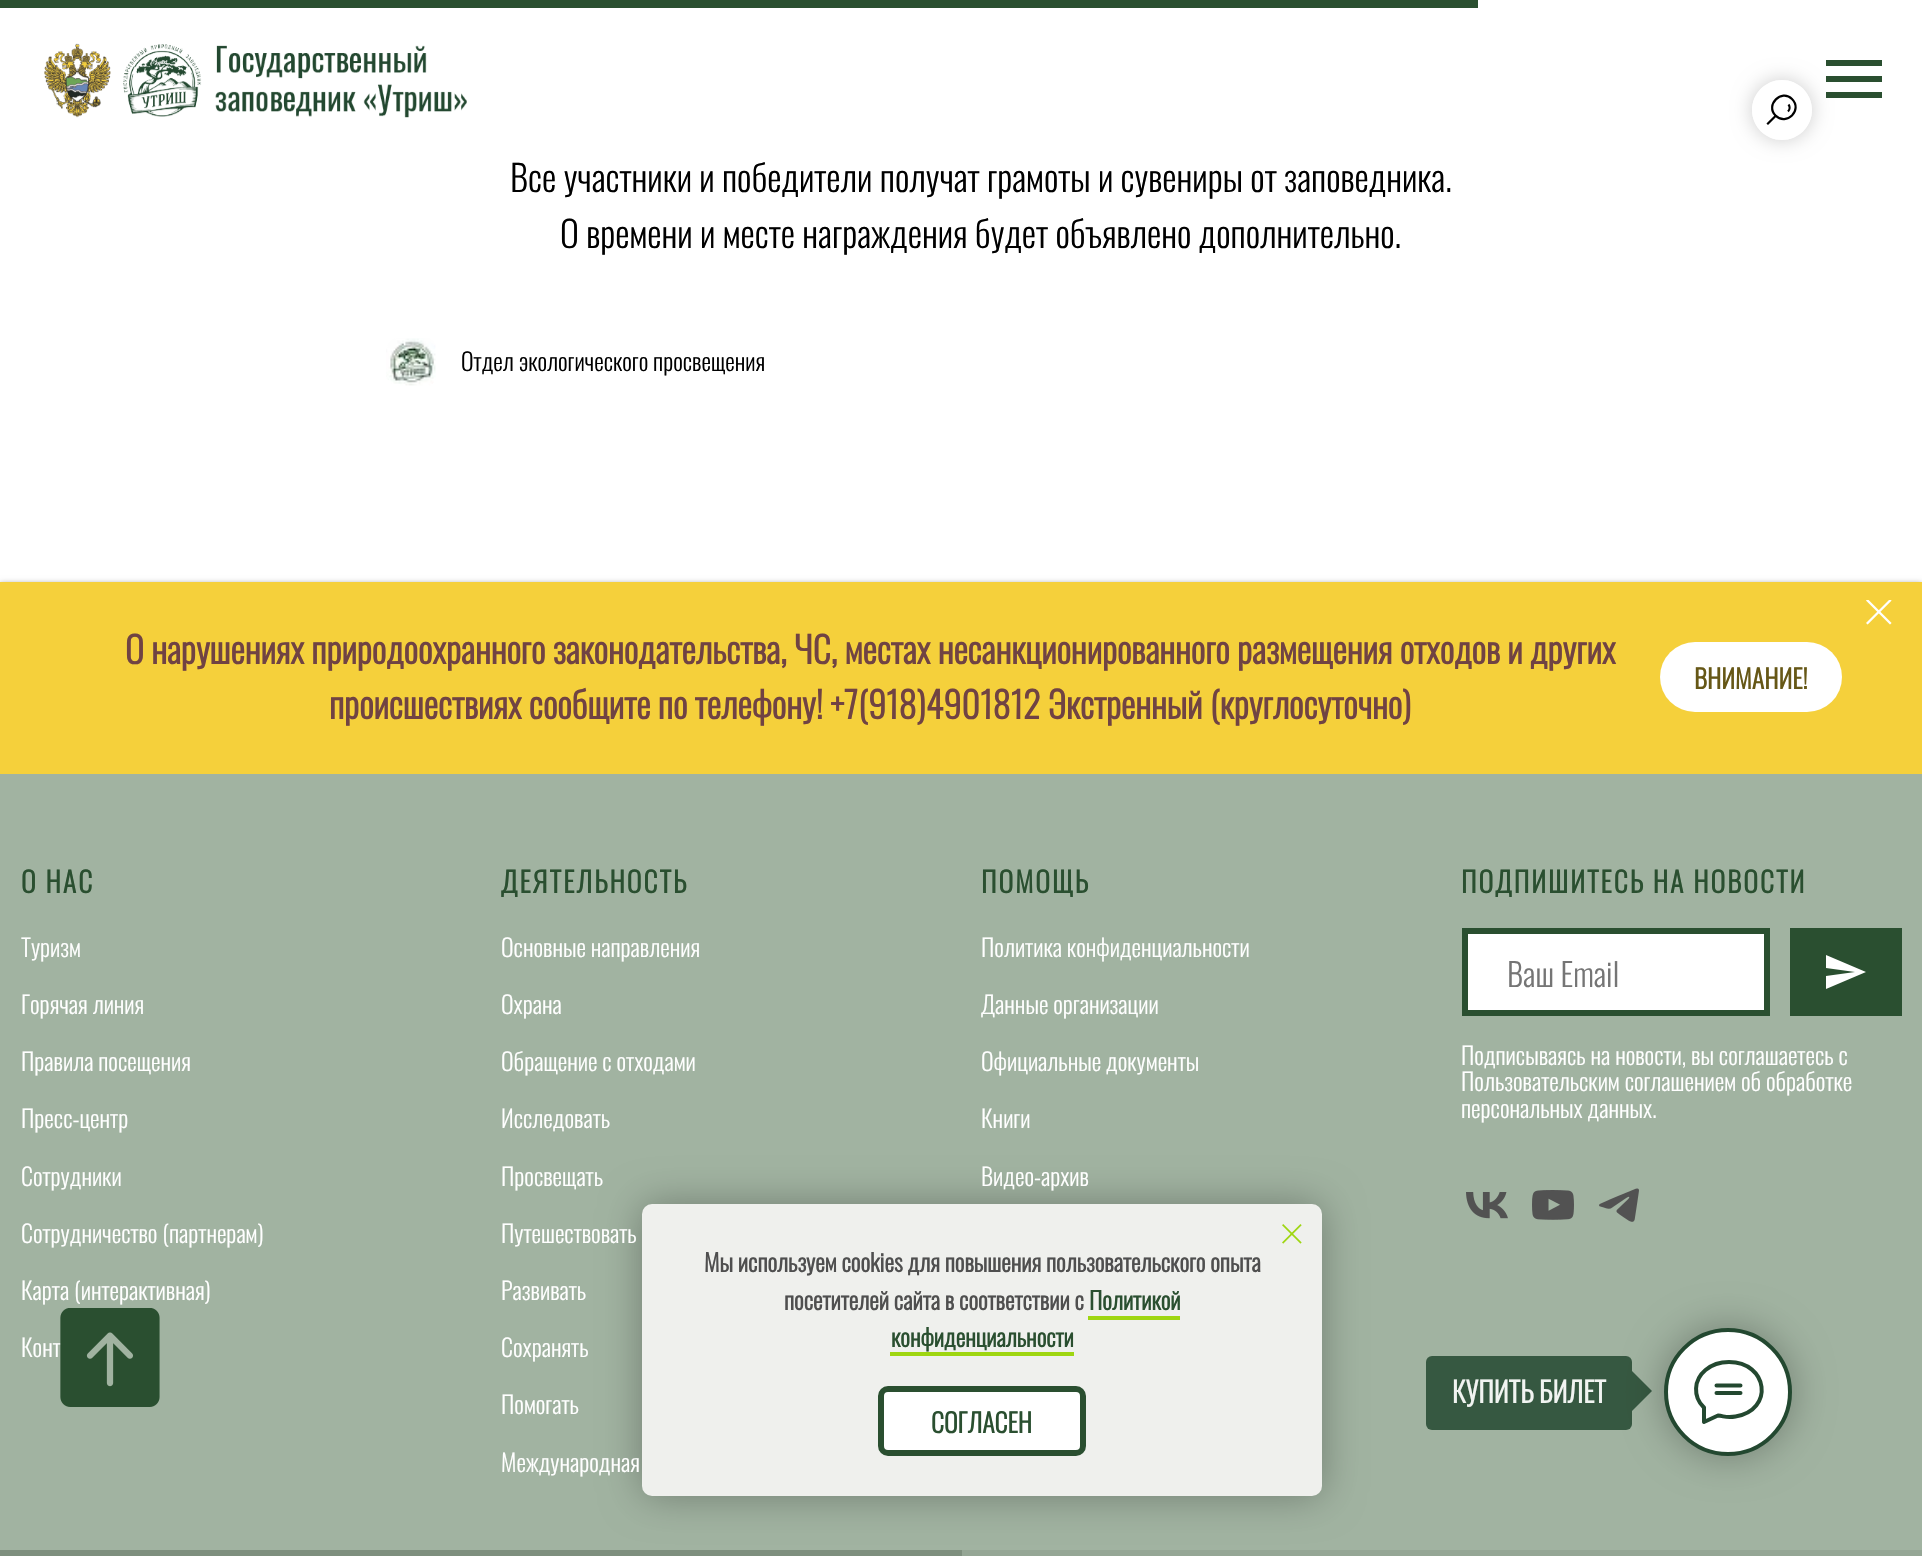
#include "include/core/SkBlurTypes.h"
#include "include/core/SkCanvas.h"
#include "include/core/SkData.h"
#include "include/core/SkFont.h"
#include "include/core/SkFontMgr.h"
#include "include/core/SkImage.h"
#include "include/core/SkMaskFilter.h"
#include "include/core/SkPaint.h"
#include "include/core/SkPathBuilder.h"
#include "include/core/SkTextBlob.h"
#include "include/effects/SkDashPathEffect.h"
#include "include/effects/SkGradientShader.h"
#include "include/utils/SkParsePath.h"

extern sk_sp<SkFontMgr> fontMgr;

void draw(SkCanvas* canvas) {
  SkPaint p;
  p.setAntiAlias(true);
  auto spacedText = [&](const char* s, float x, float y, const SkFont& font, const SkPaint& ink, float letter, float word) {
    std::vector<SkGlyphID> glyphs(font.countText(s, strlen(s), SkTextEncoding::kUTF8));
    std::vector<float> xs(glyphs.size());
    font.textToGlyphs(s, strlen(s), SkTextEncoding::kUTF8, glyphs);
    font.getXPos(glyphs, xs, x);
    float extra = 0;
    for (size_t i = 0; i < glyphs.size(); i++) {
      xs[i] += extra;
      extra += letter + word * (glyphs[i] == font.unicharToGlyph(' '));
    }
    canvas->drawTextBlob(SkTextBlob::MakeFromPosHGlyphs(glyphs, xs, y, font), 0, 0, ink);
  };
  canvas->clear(SK_ColorWHITE);
  canvas->drawImageRect(SkImages::DeferredFromEncodedData(SkData::MakeFromFileName("images/1.png")), SkRect::MakeLTRB(386, 338, 436, 386), SkSamplingOptions());
  p.setColor(SkColorSetARGB(128, 0, 0, 0));
  p.setMaskFilter(SkMaskFilter::MakeBlur(kNormal_SkBlurStyle, 3));
  canvas->drawRect(SkRect::MakeLTRB(0, 584, 1922, 776), p);
  p.setMaskFilter(nullptr);
  p.setColor(SkColorSetRGB(245, 208, 59));
  canvas->drawRect(SkRect::MakeLTRB(0, 582, 1922, 774), p);
  canvas->drawImageRect(SkImages::DeferredFromEncodedData(SkData::MakeFromFileName("images/2.png")), SkRect::MakeLTRB(1866, 600, 1892, 625), SkSamplingOptions());
  p.setColor(SK_ColorWHITE);
  canvas->drawRoundRect(SkRect::MakeLTRB(1660, 642, 1842, 712), 35, 35, p);
  p.setColor(SkColorSetRGB(161, 179, 161));
  canvas->drawRect(SkRect::MakeLTRB(0, 774, 1922, 1550), p);
  p.setColor(SK_ColorWHITE);
  canvas->drawRect(SkRect::MakeLTRB(1465, 931, 1767, 1013), p);
  p.setStyle(SkPaint::kStroke_Style);
  p.setStrokeWidth(6);
  p.setColor(SkColorSetRGB(42, 79, 48));
  canvas->drawRect(SkRect::MakeLTRB(1465, 931, 1767, 1013), p);
  p.setStyle(SkPaint::kFill_Style);
  canvas->drawRect(SkRect::MakeLTRB(1790, 928, 1902, 1016), p);
  p.setColor(SK_ColorWHITE);
  canvas->drawPath(SkPathBuilder().moveTo(1826, 989).lineTo(1866, 972).lineTo(1826, 955).lineTo(1826, 968).lineTo(1855, 972).lineTo(1826, 976).close().detach(), p);
  canvas->drawImageRect(SkImages::DeferredFromEncodedData(SkData::MakeFromFileName("images/3.png")), SkRect::MakeLTRB(1466, 1192, 1508, 1219), SkSamplingOptions());
  canvas->drawImageRect(SkImages::DeferredFromEncodedData(SkData::MakeFromFileName("images/4.png")), SkRect::MakeLTRB(1532, 1190, 1574, 1220), SkSamplingOptions());
  canvas->drawImageRect(SkImages::DeferredFromEncodedData(SkData::MakeFromFileName("images/5.png")), SkRect::MakeLTRB(1599, 1188, 1639, 1222), SkSamplingOptions());
  p.setColor(SkColorSetRGB(126, 143, 126));
  canvas->drawRect(SkRect::MakeLTRB(0, 1550, 962, 1556), p);
  p.setColor(SkColorSetRGB(149, 166, 149));
  canvas->drawRect(SkRect::MakeLTRB(962, 1550, 1922, 1556), p);
  p.setColor(SkColorSetRGB(42, 79, 48));
  canvas->drawRect(SkRect::MakeLTRB(0, 0, 1478, 8), p);
  canvas->drawImageRect(SkImages::DeferredFromEncodedData(SkData::MakeFromFileName("images/6.png")), SkRect::MakeLTRB(44, 43, 467, 118), SkSamplingOptions());
  canvas->drawRect(SkRect::MakeLTRB(1826, 60, 1882, 66), p);
  canvas->drawRect(SkRect::MakeLTRB(1826, 76, 1882, 82), p);
  canvas->drawRect(SkRect::MakeLTRB(1826, 92, 1882, 98), p);
  canvas->save();
  canvas->clipPath(SkPathBuilder(SkPathFillType::kEvenOdd).moveTo(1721, 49).lineTo(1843, 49).lineTo(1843, 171).lineTo(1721, 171).close().moveTo(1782, 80).cubicTo(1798.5f, 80, 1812, 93.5f, 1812, 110).cubicTo(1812, 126.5f, 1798.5f, 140, 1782, 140).cubicTo(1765.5f, 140, 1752, 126.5f, 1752, 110).cubicTo(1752, 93.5f, 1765.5f, 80, 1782, 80).close().detach(), true);
  p.setColor(SkColorSetARGB(51, 0, 0, 0));
  p.setMaskFilter(SkMaskFilter::MakeBlur(kNormal_SkBlurStyle, 10));
  canvas->drawRoundRect(SkRect::MakeLTRB(1752, 80, 1812, 140), 30, 30, p);
  p.setMaskFilter(nullptr);
  canvas->restore();
  p.setColor(SkColorSetARGB(204, 255, 255, 255));
  canvas->drawCircle(1782, 110, 30, p);
  p.setStyle(SkPaint::kStroke_Style);
  p.setStrokeWidth(2.2f);
  p.setStrokeCap(SkPaint::kSquare_Cap);
  p.setColor(SK_ColorBLACK);
  canvas->drawPath(SkPathBuilder().moveTo(1775.5f, 116).lineTo(1768, 123.5f).detach(), p);
  p.setStrokeCap(SkPaint::kButt_Cap);
  canvas->drawPath(SkPathBuilder().moveTo(1792, 99).cubicTo(1803, 110, 1786.5f, 126.5f, 1775.5f, 115.5f).cubicTo(1765, 105, 1781.5f, 88.5f, 1792, 99).close().moveTo(1788.5f, 104.5f).cubicTo(1790, 106.5f, 1790, 109.5f, 1788, 111.5f).detach(), p);
  p.setStyle(SkPaint::kFill_Style);
  p.setColor(SkColorSetARGB(77, 0, 0, 0));
  p.setMaskFilter(SkMaskFilter::MakeBlur(kNormal_SkBlurStyle, 20));
  canvas->drawRoundRect(SkRect::MakeLTRB(642, 1204, 1322, 1496), 10, 10, p);
  p.setMaskFilter(nullptr);
  p.setColor(SkColorSetRGB(239, 240, 237));
  canvas->drawRoundRect(SkRect::MakeLTRB(642, 1204, 1322, 1496), 10, 10, p);
  canvas->drawImageRect(SkImages::DeferredFromEncodedData(SkData::MakeFromFileName("images/8.png")), SkRect::MakeLTRB(1282, 1224, 1302, 1244), SkSamplingOptions());
  p.setColor(SkColorSetRGB(158, 214, 17));
  canvas->drawRect(SkRect::MakeLTRB(1088, 1316, 1180, 1320), p);
  canvas->drawRect(SkRect::MakeLTRB(890, 1352, 1074, 1356), p);
  p.setColor(SK_ColorWHITE);
  canvas->drawRoundRect(SkRect::MakeLTRB(881, 1389, 1083, 1453), 7, 7, p);
  p.setStyle(SkPaint::kStroke_Style);
  p.setStrokeWidth(6);
  p.setColor(SkColorSetRGB(42, 79, 48));
  canvas->drawRoundRect(SkRect::MakeLTRB(881, 1389, 1083, 1453), 7, 7, p);
  p.setStyle(SkPaint::kFill_Style);
  p.setColor(SkColorSetRGB(54, 88, 65));
  canvas->drawRoundRect(SkRect::MakeLTRB(1426, 1356, 1632, 1430), 6, 6, p);
  canvas->drawPath(SkPathBuilder().moveTo(1632, 1411).lineTo(1632, 1371).lineTo(1652, 1391).close().detach(), p);
  p.setColor(SkColorSetARGB(77, 0, 0, 0));
  p.setMaskFilter(SkMaskFilter::MakeBlur(kNormal_SkBlurStyle, 20));
  canvas->drawRoundRect(SkRect::MakeLTRB(1664, 1328, 1792, 1456), 64, 64, p);
  p.setMaskFilter(nullptr);
  p.setColor(SK_ColorWHITE);
  canvas->drawCircle(1728, 1392, 62, p);
  p.setStyle(SkPaint::kStroke_Style);
  p.setStrokeWidth(4);
  p.setColor(SkColorSetRGB(35, 72, 48));
  canvas->drawCircle(1728, 1392, 62, p);
  p.setStrokeCap(SkPaint::kRound_Cap);
  p.setStrokeJoin(SkPaint::kRound_Join);
  canvas->drawPath(SkPathBuilder().moveTo(1716.5f, 1385.5f).lineTo(1740.5f, 1385.5f).moveTo(1716.5f, 1393).lineTo(1740.5f, 1393).moveTo(1703.5f, 1407).cubicTo(1693, 1396.5f, 1693.5f, 1380, 1705.5f, 1370).cubicTo(1712, 1364.5f, 1720.5f, 1362, 1729, 1362).cubicTo(1768, 1362, 1774.5f, 1410, 1735.5f, 1416.5f).cubicTo(1727, 1418, 1725.5f, 1416.5f, 1718, 1415.5f).lineTo(1704, 1422).lineTo(1704, 1407.5f).close().detach(), p);
  SkFont font1(fontMgr->matchFamilyStyle("Oswald", SkFontStyle(300, SkFontStyle::kNormal_Width, SkFontStyle::kUpright_Slant)), 36);
  font1.setSubpixel(true);
  p.setStyle(SkPaint::kFill_Style);
  p.setColor(SK_ColorBLACK);
  canvas->drawString("Все участники и победители получат грамоты и сувениры от заповедника.", 510, 192, font1, p);
  canvas->drawString("О времени и месте награждения будет объявлено дополнительно.", 560, 248, font1, p);
  SkFont font2(fontMgr->matchFamilyStyle("Oswald", SkFontStyle(300, SkFontStyle::kNormal_Width, SkFontStyle::kUpright_Slant)), 24);
  font2.setSubpixel(true);
  canvas->drawString("Отдел экологического просвещения", 461, 371, font2, p);
  SkFont font3(fontMgr->matchFamilyStyle("Oswald", SkFontStyle::Bold()), 36);
  font3.setSubpixel(true);
  p.setColor(SkColorSetRGB(112, 67, 67));
  canvas->drawString("О нарушениях природоохранного законодательства, ЧС, местах несанкционированного размещения отходов и других", 125, 664, font3, p);
  canvas->drawString("происшествиях сообщите по телефону! +7(918)4901812 Экстренный (круглосуточно)", 329, 719, font3, p);
  SkFont font4(fontMgr->matchFamilyStyle("Oswald", SkFontStyle::Bold()), 26);
  font4.setSubpixel(true);
  p.setColor(SkColorSetRGB(102, 87, 22));
  canvas->drawString("ВНИМАНИЕ!", 1694, 689, font4, p);
  SkFont font5(fontMgr->matchFamilyStyle("Oswald", SkFontStyle::Bold()), 28);
  font5.setSubpixel(true);
  p.setColor(SkColorSetRGB(42, 79, 48));
  spacedText("О НАС", 21, 893, font5, p, 2, 0);
  p.setColor(SK_ColorWHITE);
  canvas->drawString("Туризм", 21, 957, font2, p);
  canvas->drawString("Горячая линия", 21, 1014, font2, p);
  canvas->drawString("Правила посещения", 21, 1071, font2, p);
  canvas->drawString("Пресс-центр", 21, 1128, font2, p);
  canvas->drawString("Сотрудники", 21, 1186, font2, p);
  canvas->drawString("Сотрудничество (партнерам)", 21, 1243, font2, p);
  canvas->drawString("Карта (интерактивная)", 21, 1300, font2, p);
  canvas->drawString("Конт", 21, 1357, font2, p);
  p.setColor(SkColorSetRGB(42, 79, 48));
  spacedText("ДЕЯТЕЛЬНОСТЬ", 501, 893, font5, p, 2, 0);
  p.setColor(SK_ColorWHITE);
  canvas->drawString("Основные направления", 501, 957, font2, p);
  canvas->drawString("Охрана", 501, 1014, font2, p);
  canvas->drawString("Обращение с отходами", 501, 1071, font2, p);
  canvas->drawString("Исследовать", 501, 1128, font2, p);
  canvas->drawString("Просвещать", 501, 1186, font2, p);
  canvas->drawString("Путешествовать", 501, 1243, font2, p);
  canvas->drawString("Развивать", 501, 1300, font2, p);
  canvas->drawString("Сохранять", 501, 1357, font2, p);
  canvas->drawString("Помогать", 501, 1414, font2, p);
  canvas->drawString("Международная", 501, 1472, font2, p);
  p.setColor(SkColorSetRGB(42, 79, 48));
  spacedText("ПОМОЩЬ", 981, 893, font5, p, 2, 0);
  p.setColor(SK_ColorWHITE);
  canvas->drawString("Политика конфиденциальности", 981, 957, font2, p);
  canvas->drawString("Данные организации", 981, 1014, font2, p);
  canvas->drawString("Официальные документы", 981, 1071, font2, p);
  canvas->drawString("Книги", 981, 1128, font2, p);
  canvas->drawString("Видео-архив", 981, 1186, font2, p);
  p.setColor(SkColorSetRGB(42, 79, 48));
  spacedText("ПОДПИШИТЕСЬ НА НОВОСТИ", 1461, 893, font5, p, 2, 0);
  SkFont font6(fontMgr->matchFamilyStyle("Oswald", SkFontStyle(300, SkFontStyle::kNormal_Width, SkFontStyle::kUpright_Slant)), 32);
  font6.setSubpixel(true);
  p.setColor(SkColorSetRGB(117, 117, 117));
  canvas->drawString("Ваш Email", 1507, 987, font6, p);
  p.setColor(SK_ColorWHITE);
  canvas->drawString("Подписываясь на новости, вы соглашаетесь с", 1461, 1065, font2, p);
  canvas->drawString("Пользовательским соглашением об обработке", 1461, 1091, font2, p);
  canvas->drawString("персональных данных.", 1461, 1118, font2, p);
  canvas->drawImageRect(SkImages::DeferredFromEncodedData(SkData::MakeFromFileName("images/7.png")), SkRect::MakeLTRB(60, 1308, 160, 1407), SkSamplingOptions());
  SkFont font7(fontMgr->matchFamilyStyle("Oswald", SkFontStyle::Bold()), 24);
  font7.setSubpixel(true);
  p.setColor(SkColorSetRGB(79, 79, 79));
  canvas->drawString("Мы используем cookies для повышения пользовательского опыта", 704, 1272, font7, p);
  canvas->drawString("посетителей сайта в соответствии с", 784, 1310, font7, p);
  p.setColor(SkColorSetRGB(42, 79, 48));
  canvas->drawString("Политикой", 1089, 1310, font7, p);
  canvas->drawString("конфиденциальности", 891, 1347, font7, p);
  canvas->drawString("СОГЛАСЕН", 931, 1433, font4, p);
  p.setColor(SkColorSetRGB(241, 244, 241));
  canvas->drawString("КУПИТЬ БИЛЕТ", 1452, 1403, font5, p);
}
